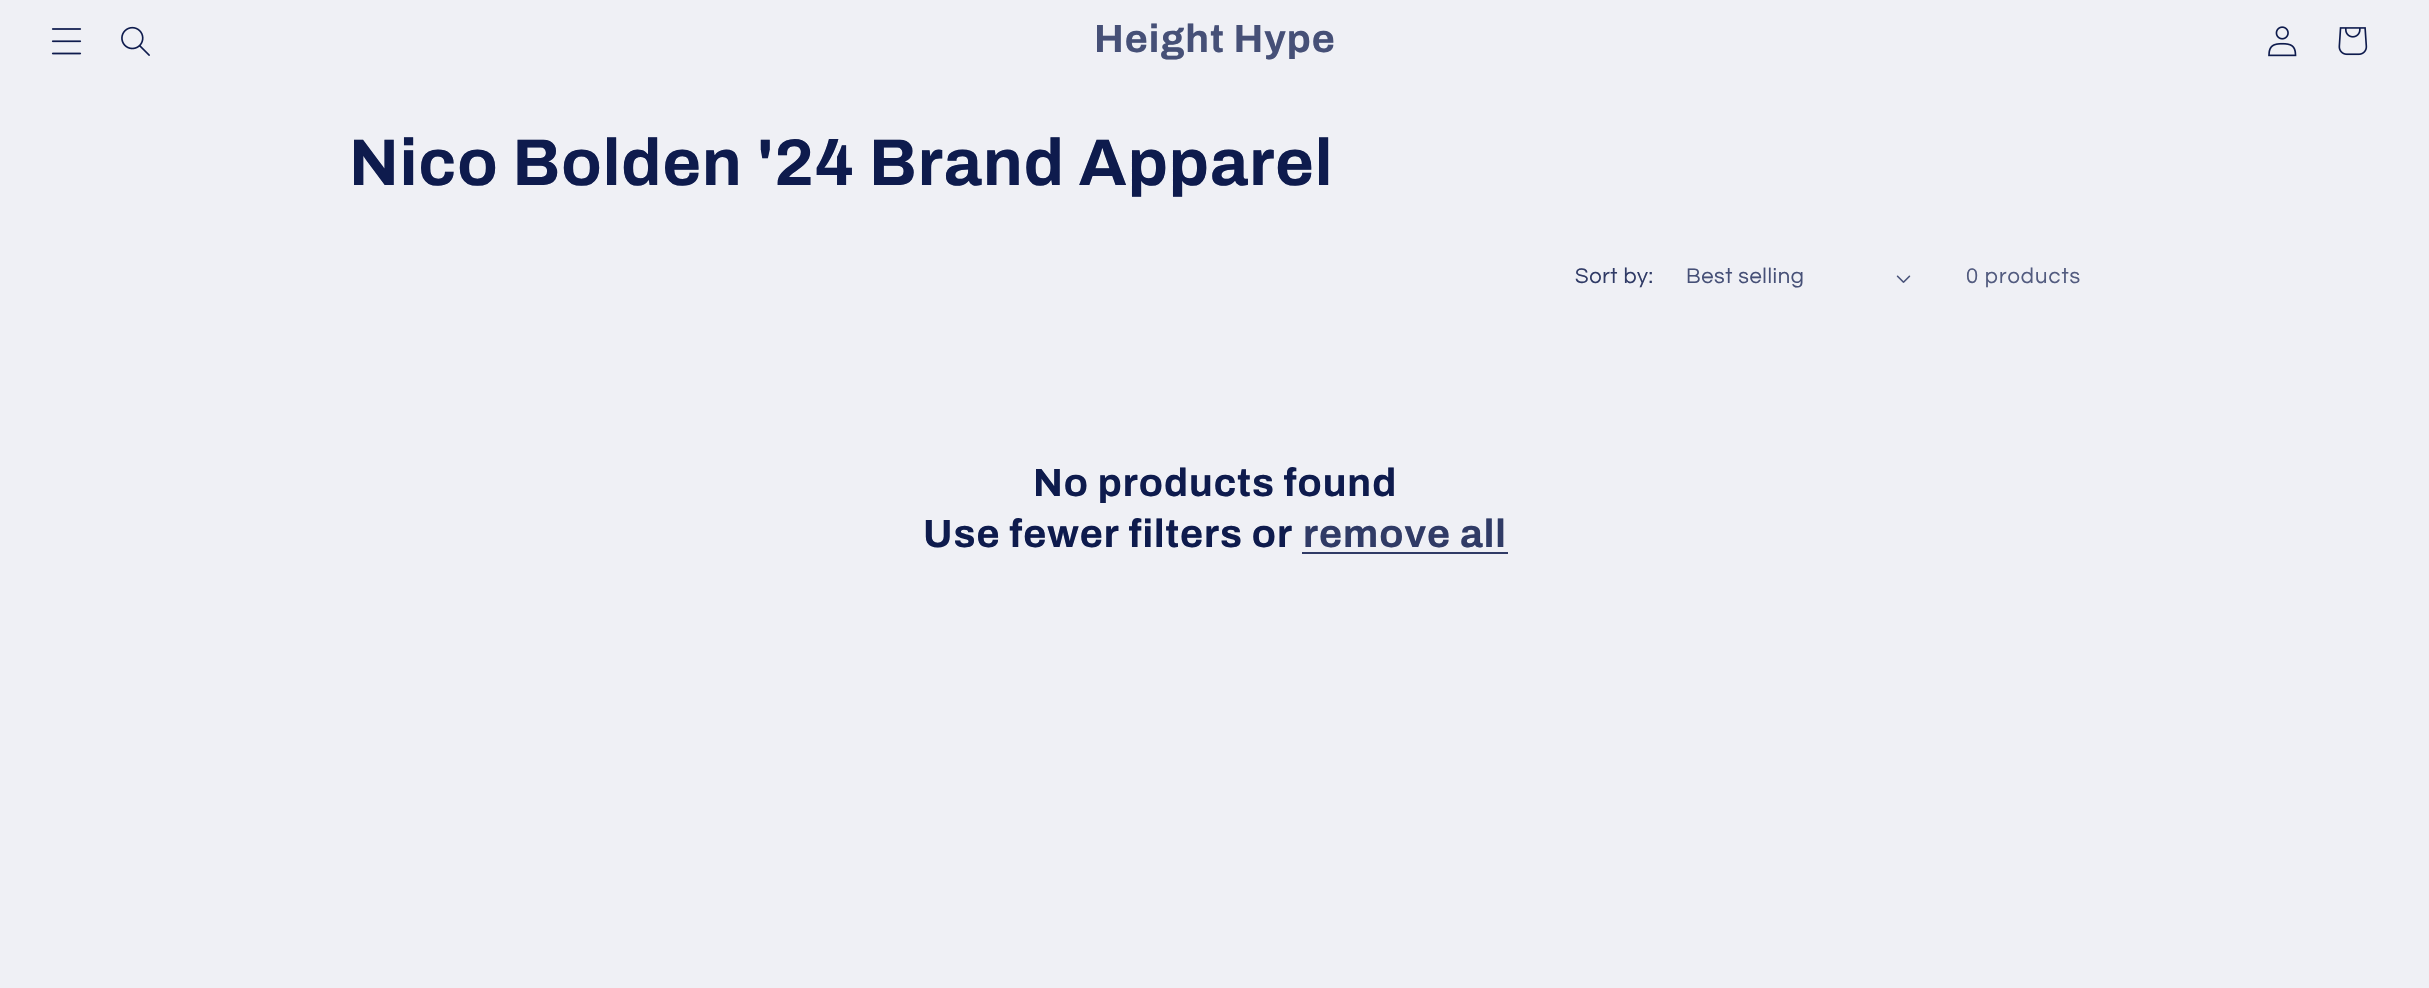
#include "include/core/SkBlurTypes.h"
#include "include/core/SkCanvas.h"
#include "include/core/SkData.h"
#include "include/core/SkFont.h"
#include "include/core/SkFontMgr.h"
#include "include/core/SkImage.h"
#include "include/core/SkMaskFilter.h"
#include "include/core/SkPaint.h"
#include "include/core/SkPathBuilder.h"
#include "include/core/SkTextBlob.h"
#include "include/effects/SkDashPathEffect.h"
#include "include/effects/SkGradientShader.h"
#include "include/utils/SkParsePath.h"

extern sk_sp<SkFontMgr> fontMgr;

void draw(SkCanvas* canvas) {
  SkPaint p;
  p.setAntiAlias(true);
  auto spacedText = [&](const char* s, float x, float y, const SkFont& font, const SkPaint& ink, float letter, float word) {
    std::vector<SkGlyphID> glyphs(font.countText(s, strlen(s), SkTextEncoding::kUTF8));
    std::vector<float> xs(glyphs.size());
    font.textToGlyphs(s, strlen(s), SkTextEncoding::kUTF8, glyphs);
    font.getXPos(glyphs, xs, x);
    float extra = 0;
    for (size_t i = 0; i < glyphs.size(); i++) {
      xs[i] += extra;
      extra += letter + word * (glyphs[i] == font.unicharToGlyph(' '));
    }
    canvas->drawTextBlob(SkTextBlob::MakeFromPosHGlyphs(glyphs, xs, y, font), 0, 0, ink);
  };
  canvas->clear(SkColorSetRGB(239, 240, 245));
  canvas->drawImageRect(SkImages::DeferredFromEncodedData(SkData::MakeFromFileName("images/1.png")), SkRect::MakeLTRB(51, 28, 82, 55), SkSamplingOptions());
  canvas->drawImageRect(SkImages::DeferredFromEncodedData(SkData::MakeFromFileName("images/2.png")), SkRect::MakeLTRB(121, 26, 150, 56), SkSamplingOptions());
  canvas->drawImageRect(SkImages::DeferredFromEncodedData(SkData::MakeFromFileName("images/3.png")), SkRect::MakeLTRB(2268, 26, 2297, 57), SkSamplingOptions());
  canvas->drawImageRect(SkImages::DeferredFromEncodedData(SkData::MakeFromFileName("images/4.png")), SkRect::MakeLTRB(2338, 27, 2368, 56), SkSamplingOptions());
  canvas->drawImageRect(SkImages::DeferredFromEncodedData(SkData::MakeFromFileName("images/5.png")), SkRect::MakeLTRB(1896, 275, 1911, 283), SkSamplingOptions());
  p.setColor(SkColorSetRGB(48, 59, 102));
  canvas->drawRect(SkRect::MakeLTRB(1302, 552, 1508, 554), p);
  SkFont font1(fontMgr->matchFamilyStyle("Archivo", SkFontStyle::Bold()), 39.5f);
  font1.setSubpixel(true);
  p.setColor(SkColorSetRGB(70, 80, 119));
  spacedText("Height Hype", 1094, 52, font1, p, 1, 0);
  SkFont font2(fontMgr->matchFamilyStyle("Archivo", SkFontStyle::Bold()), 66);
  font2.setSubpixel(true);
  p.setColor(SkColorSetRGB(14, 27, 77));
  spacedText("Nico Bolden '24 Brand Apparel", 349, 185, font2, p, 1, 0);
  SkFont font3(fontMgr->matchFamilyStyle("Questrial", SkFontStyle::Normal()), 22);
  font3.setSubpixel(true);
  p.setColor(SkColorSetRGB(48, 59, 102));
  spacedText("Sort by:", 1575, 283, font3, p, 0.6f, 0);
  p.setColor(SkColorSetRGB(70, 80, 119));
  spacedText("Best selling", 1686, 283, font3, p, 0.6f, 0);
  p.setColor(SkColorSetRGB(82, 91, 127));
  spacedText("0 products", 1966, 283, font3, p, 1, 0);
  p.setColor(SkColorSetRGB(14, 27, 77));
  spacedText("No products found", 1033, 496, font1, p, 1, 0);
  spacedText("Use fewer filters or", 923, 547, font1, p, 1, 0);
  p.setColor(SkColorSetRGB(48, 59, 102));
  spacedText("remove all", 1303, 547, font1, p, 1, 0);
}
